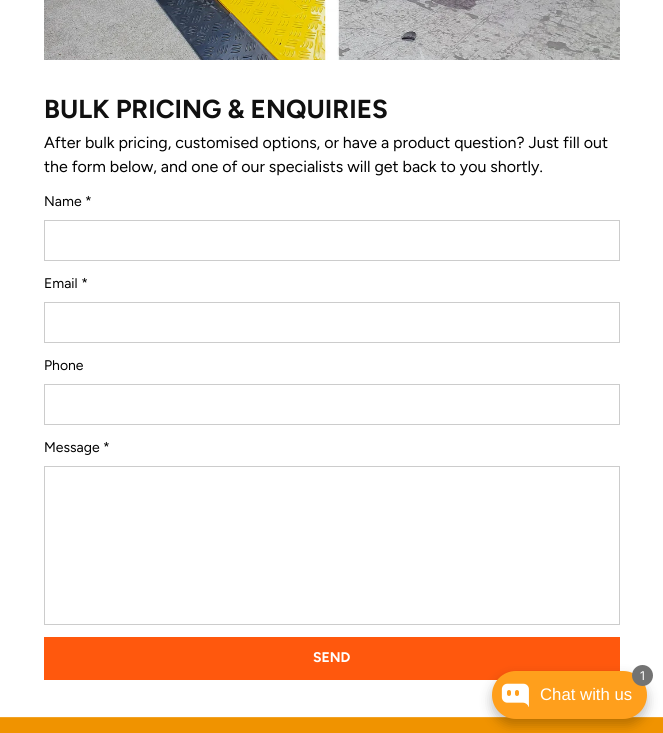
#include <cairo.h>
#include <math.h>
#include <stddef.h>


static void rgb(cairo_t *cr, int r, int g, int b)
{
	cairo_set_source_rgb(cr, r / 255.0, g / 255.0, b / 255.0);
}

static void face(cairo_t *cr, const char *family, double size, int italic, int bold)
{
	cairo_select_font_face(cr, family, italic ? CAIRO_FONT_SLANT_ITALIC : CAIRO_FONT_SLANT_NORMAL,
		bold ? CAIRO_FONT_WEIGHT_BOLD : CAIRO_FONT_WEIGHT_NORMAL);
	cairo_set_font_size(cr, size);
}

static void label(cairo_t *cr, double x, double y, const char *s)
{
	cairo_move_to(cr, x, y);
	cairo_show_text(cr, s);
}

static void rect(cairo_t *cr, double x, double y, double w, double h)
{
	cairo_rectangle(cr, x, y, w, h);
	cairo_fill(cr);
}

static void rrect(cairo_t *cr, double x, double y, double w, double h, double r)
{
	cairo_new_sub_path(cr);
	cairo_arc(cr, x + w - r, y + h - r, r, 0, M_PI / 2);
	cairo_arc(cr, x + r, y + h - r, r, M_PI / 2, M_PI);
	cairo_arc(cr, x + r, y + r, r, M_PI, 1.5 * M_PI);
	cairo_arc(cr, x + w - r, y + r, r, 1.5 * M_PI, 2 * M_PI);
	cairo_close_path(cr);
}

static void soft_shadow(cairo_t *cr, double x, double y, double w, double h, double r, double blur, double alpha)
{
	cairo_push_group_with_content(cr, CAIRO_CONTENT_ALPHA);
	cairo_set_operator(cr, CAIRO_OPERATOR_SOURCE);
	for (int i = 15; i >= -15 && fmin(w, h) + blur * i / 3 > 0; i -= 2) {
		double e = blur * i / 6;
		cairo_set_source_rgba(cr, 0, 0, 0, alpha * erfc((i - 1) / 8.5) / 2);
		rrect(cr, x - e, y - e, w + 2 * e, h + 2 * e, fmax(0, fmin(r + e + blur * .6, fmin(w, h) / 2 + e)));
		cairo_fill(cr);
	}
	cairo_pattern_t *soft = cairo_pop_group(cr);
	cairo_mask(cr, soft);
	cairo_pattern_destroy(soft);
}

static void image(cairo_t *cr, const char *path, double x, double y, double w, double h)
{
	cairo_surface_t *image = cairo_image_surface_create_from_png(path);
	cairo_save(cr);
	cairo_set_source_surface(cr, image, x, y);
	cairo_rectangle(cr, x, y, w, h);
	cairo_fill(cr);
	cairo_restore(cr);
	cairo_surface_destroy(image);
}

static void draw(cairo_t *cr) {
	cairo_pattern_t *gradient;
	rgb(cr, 255, 255, 255);
	cairo_paint(cr);
	image(cr, "image0.png", 44, 0, 576, 60);
	face(cr, "Figtree", 26, 0, 1);
	rgb(cr, 16, 16, 16);
	label(cr, 44, 118, "BULK PRICING & ENQUIRIES");
	face(cr, "Figtree", 16, 0, 0);
	rgb(cr, 0, 0, 0);
	label(cr, 44, 148, "After bulk pricing, customised options, or have a product question? Just fill out");
	label(cr, 44, 172, "the form below, and one of our specialists will get back to you shortly.");
	face(cr, "Figtree", 14, 0, 0);
	label(cr, 44, 206, "Name *");
	cairo_rectangle(cr, 44.5, 220.5, 575, 40);
	rgb(cr, 204, 204, 204);
	cairo_set_line_width(cr, 1);
	cairo_stroke(cr);
	rgb(cr, 0, 0, 0);
	label(cr, 44, 288, "Email *");
	cairo_rectangle(cr, 44.5, 302.5, 575, 40);
	rgb(cr, 204, 204, 204);
	cairo_stroke(cr);
	rgb(cr, 0, 0, 0);
	label(cr, 44, 370, "Phone");
	cairo_rectangle(cr, 44.5, 384.5, 575, 40);
	rgb(cr, 204, 204, 204);
	cairo_stroke(cr);
	rgb(cr, 0, 0, 0);
	label(cr, 44, 452, "Message *");
	cairo_rectangle(cr, 44.5, 466.5, 575, 158);
	rgb(cr, 204, 204, 204);
	cairo_stroke(cr);
	gradient = cairo_pattern_create_linear(-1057, 455, 573, 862);
	cairo_pattern_add_color_stop_rgba(gradient, 0.6, 1, 0.486, 0.251, 1);
	cairo_pattern_add_color_stop_rgba(gradient, 0.6, 1, 0.345, 0.051, 1);
	cairo_pattern_add_color_stop_rgba(gradient, 1, 1, 0.345, 0.051, 1);
	cairo_set_source(cr, gradient);
	cairo_pattern_destroy(gradient);
	rect(cr, 45, 638, 574, 41);
	cairo_rectangle(cr, 44.5, 637.5, 575, 42);
	rgb(cr, 255, 88, 13);
	cairo_stroke(cr);
	face(cr, "Figtree", 14, 0, 1);
	rgb(cr, 255, 255, 255);
	label(cr, 313, 662, "SEND");
	rgb(cr, 240, 147, 0);
	rect(cr, 0, 718, 663, 15);
	rgb(cr, 242, 163, 38);
	rect(cr, 0, 717, 663, 1);
	rgb(cr, 0, 0, 0);
	soft_shadow(cr, 492, 677, 155, 48, 24, 6, 0.25);
	rgb(cr, 255, 159, 28);
	rrect(cr, 492, 671, 155, 48, 24);
	cairo_fill(cr);
	rgb(cr, 115, 115, 115);
	cairo_arc(cr, 642.5, 675.5, 10.5, 0, 2 * M_PI);
	cairo_fill(cr);
	face(cr, "Inter", 12, 0, 0);
	rgb(cr, 255, 255, 255);
	label(cr, 640, 680, "1");
	image(cr, "image1.png", 501, 683, 28, 24);
	face(cr, "Liberation Sans", 16.75, 0, 0);
	label(cr, 540, 700, "Chat with us");
}

int main(void) {
	cairo_surface_t *surface = cairo_image_surface_create(CAIRO_FORMAT_RGB24, 663, 733);
	cairo_t *cr = cairo_create(surface);
	cairo_font_options_t *options = cairo_font_options_create();
	cairo_font_options_set_hint_metrics(options, CAIRO_HINT_METRICS_OFF);
	cairo_font_options_set_hint_style(options, CAIRO_HINT_STYLE_NONE);
	cairo_set_font_options(cr, options);
	cairo_set_miter_limit(cr, 4);
	draw(cr);
	cairo_surface_write_to_png(surface, "render.png");
	cairo_font_options_destroy(options);
	cairo_destroy(cr);
	cairo_surface_destroy(surface);
	return 0;
}
